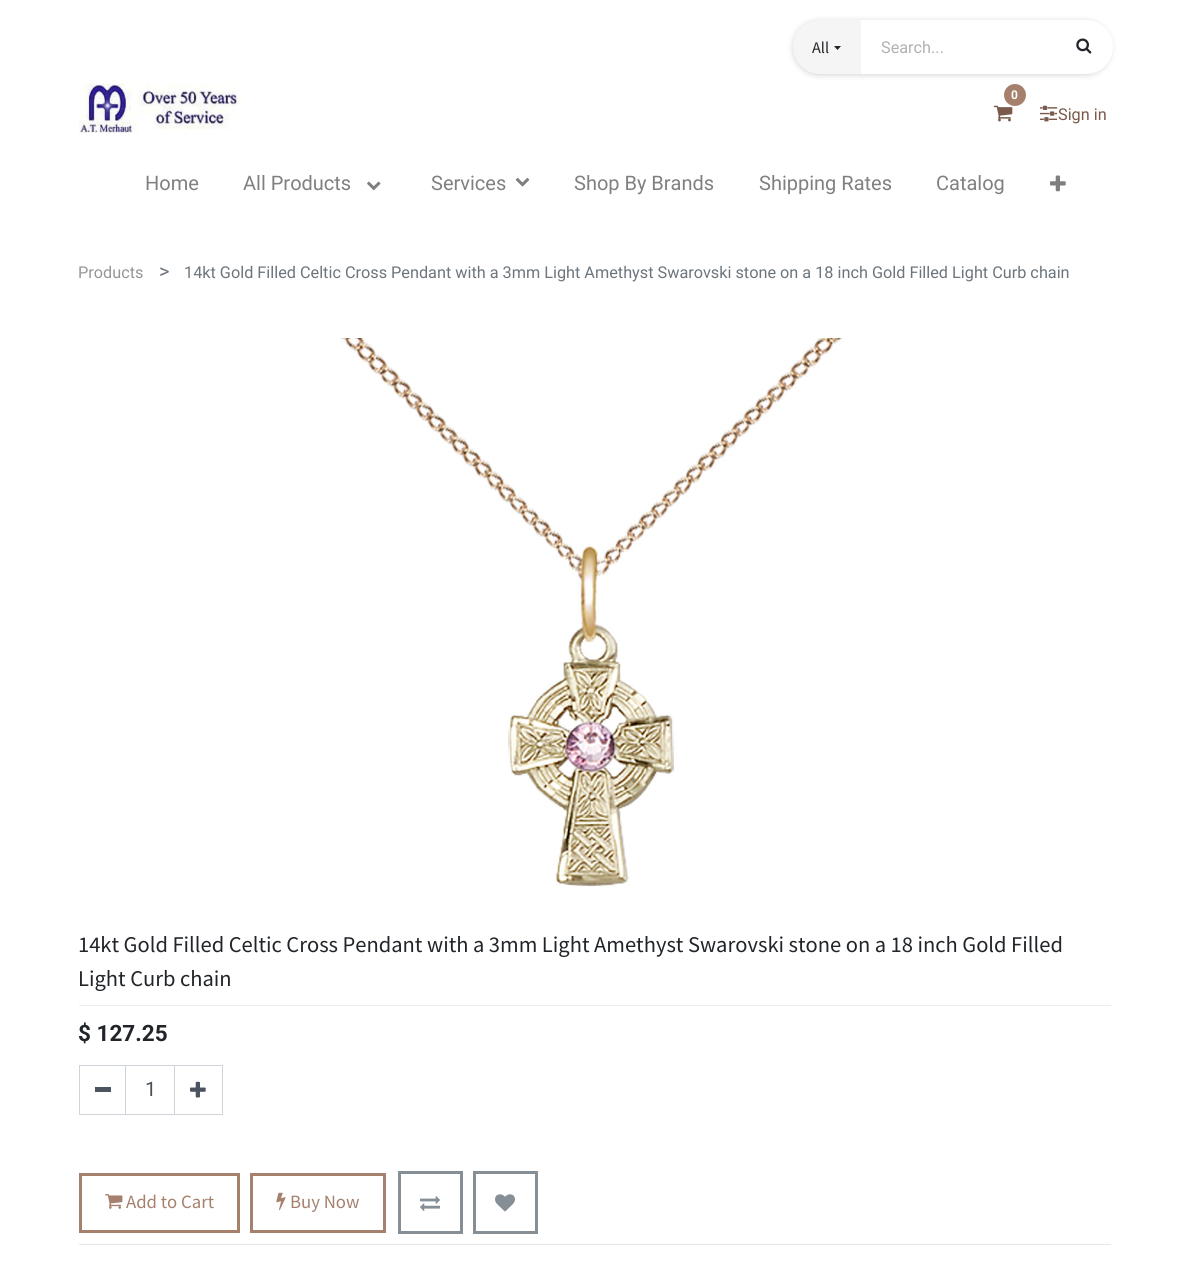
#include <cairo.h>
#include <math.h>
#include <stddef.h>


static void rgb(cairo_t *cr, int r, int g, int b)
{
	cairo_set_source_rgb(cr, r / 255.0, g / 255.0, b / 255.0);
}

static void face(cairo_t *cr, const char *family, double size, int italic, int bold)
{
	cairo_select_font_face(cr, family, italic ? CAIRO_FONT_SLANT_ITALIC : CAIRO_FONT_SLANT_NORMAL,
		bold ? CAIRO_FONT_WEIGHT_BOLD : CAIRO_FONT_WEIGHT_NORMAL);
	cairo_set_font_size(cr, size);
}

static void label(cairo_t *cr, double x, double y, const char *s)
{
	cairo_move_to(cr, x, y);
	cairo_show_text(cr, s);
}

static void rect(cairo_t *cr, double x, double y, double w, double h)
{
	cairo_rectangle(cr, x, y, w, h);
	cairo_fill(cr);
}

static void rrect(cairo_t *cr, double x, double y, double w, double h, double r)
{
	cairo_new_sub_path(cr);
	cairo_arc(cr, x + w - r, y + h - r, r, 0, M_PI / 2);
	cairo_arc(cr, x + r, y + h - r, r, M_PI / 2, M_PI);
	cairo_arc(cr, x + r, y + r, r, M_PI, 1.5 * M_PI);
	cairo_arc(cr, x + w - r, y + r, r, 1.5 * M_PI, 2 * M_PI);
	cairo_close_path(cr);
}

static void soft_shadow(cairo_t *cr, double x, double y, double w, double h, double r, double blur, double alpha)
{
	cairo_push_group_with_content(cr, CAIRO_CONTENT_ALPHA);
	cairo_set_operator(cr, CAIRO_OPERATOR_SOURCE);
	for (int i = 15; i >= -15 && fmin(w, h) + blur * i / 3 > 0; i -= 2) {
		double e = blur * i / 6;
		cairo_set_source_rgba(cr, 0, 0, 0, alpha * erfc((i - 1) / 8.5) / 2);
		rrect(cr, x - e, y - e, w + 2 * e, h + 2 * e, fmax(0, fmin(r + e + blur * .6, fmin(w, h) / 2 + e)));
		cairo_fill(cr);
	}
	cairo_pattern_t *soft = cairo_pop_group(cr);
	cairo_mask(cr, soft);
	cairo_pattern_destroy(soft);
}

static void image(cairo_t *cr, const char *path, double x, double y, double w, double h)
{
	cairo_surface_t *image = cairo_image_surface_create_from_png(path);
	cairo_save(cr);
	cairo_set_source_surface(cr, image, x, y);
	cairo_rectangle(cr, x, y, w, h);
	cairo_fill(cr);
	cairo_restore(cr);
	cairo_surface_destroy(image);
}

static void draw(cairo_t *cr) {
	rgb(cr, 255, 255, 255);
	cairo_paint(cr);
	rgb(cr, 32, 33, 36);
	soft_shadow(cr, 793, 21, 318, 54, 27, 3, 0.2);
	rgb(cr, 245, 245, 245);
	cairo_new_path(cr);
	cairo_move_to(cr, 820, 20);
	cairo_line_to(cr, 861, 20);
	cairo_line_to(cr, 861, 74);
	cairo_line_to(cr, 820, 74);
	cairo_curve_to(cr, 805, 74, 793, 62, 793, 47);
	cairo_curve_to(cr, 793, 32, 805, 20, 820, 20);
	cairo_close_path(cr);
	cairo_fill(cr);
	face(cr, "Source Sans Pro", 16.25, 0, 0);
	rgb(cr, 33, 37, 41);
	label(cr, 812, 53, "All");
	cairo_new_path(cr);
	cairo_move_to(cr, 834, 46);
	cairo_line_to(cr, 841, 46);
	cairo_line_to(cr, 837.5, 50);
	cairo_close_path(cr);
	cairo_fill(cr);
	rgb(cr, 255, 255, 255);
	cairo_new_path(cr);
	cairo_move_to(cr, 861, 20);
	cairo_line_to(cr, 1086, 20);
	cairo_curve_to(cr, 1101, 20, 1113, 32, 1113, 47);
	cairo_curve_to(cr, 1113, 62, 1101, 74, 1086, 74);
	cairo_line_to(cr, 861, 74);
	cairo_close_path(cr);
	cairo_fill(cr);
	face(cr, "Roboto", 16.25, 0, 0);
	rgb(cr, 177, 177, 177);
	label(cr, 881, 53, "Search...");
	image(cr, "image0.png", 1076, 38, 16, 16);
	image(cr, "image1.png", 78, 83, 164, 51);
	image(cr, "image2.png", 993, 105, 20, 17);
	rgb(cr, 165, 128, 109);
	cairo_arc(cr, 1015, 95, 11, 0, 2 * M_PI);
	cairo_fill(cr);
	face(cr, "Roboto", 12, 0, 1);
	rgb(cr, 255, 255, 255);
	label(cr, 1011, 99, "0");
	image(cr, "image3.png", 1040, 105, 18, 17);
	face(cr, "Roboto", 16.25, 0, 0);
	rgb(cr, 122, 91, 75);
	label(cr, 1058, 120, "Sign in");
	face(cr, "Roboto", 20, 0, 0);
	rgb(cr, 128, 128, 128);
	label(cr, 145, 190, "Home");
	label(cr, 243, 190, "All Products");
	image(cr, "image4.png", 367, 181, 14, 10);
	label(cr, 431, 190, "Services");
	image(cr, "image5.png", 515, 177, 15, 10);
	label(cr, 574, 190, "Shop By Brands");
	label(cr, 759, 190, "Shipping Rates");
	label(cr, 936, 190, "Catalog");
	image(cr, "image6.png", 1050, 175, 16, 17);
	face(cr, "Roboto", 16.25, 0, 0);
	rgb(cr, 150, 150, 150);
	label(cr, 78, 278, "Products");
	face(cr, "Roboto", 20, 0, 0);
	rgb(cr, 108, 117, 125);
	label(cr, 159, 278, ">");
	face(cr, "Roboto", 16.25, 0, 0);
	label(cr, 184, 278, "14kt Gold Filled Celtic Cross Pendant with a 3mm Light Amethyst Swarovski stone on a 18 inch Gold Filled Light Curb chain");
	image(cr, "image7.png", 340, 338, 504, 549);
	face(cr, "Source Sans Pro", 22.5, 0, 0);
	rgb(cr, 33, 37, 41);
	label(cr, 78, 952, "14kt Gold Filled Celtic Cross Pendant with a 3mm Light Amethyst Swarovski stone on a 18 inch Gold Filled");
	label(cr, 78, 986, "Light Curb chain");
	rgb(cr, 237, 237, 237);
	rect(cr, 79, 1005, 1032, 1);
	face(cr, "Roboto", 22.5, 0, 1);
	rgb(cr, 33, 37, 41);
	label(cr, 78, 1041, "$ 127.25");
	cairo_rectangle(cr, 79.5, 1065.5, 46, 49);
	rgb(cr, 206, 212, 218);
	cairo_set_line_width(cr, 1);
	cairo_stroke(cr);
	rgb(cr, 76, 84, 98);
	rect(cr, 95, 1087, 16, 5);
	cairo_rectangle(cr, 125.5, 1065.5, 49, 49);
	rgb(cr, 206, 212, 218);
	cairo_stroke(cr);
	face(cr, "Roboto", 20, 0, 0);
	rgb(cr, 73, 80, 87);
	label(cr, 145, 1096, "1");
	cairo_rectangle(cr, 174.5, 1065.5, 48, 49);
	rgb(cr, 206, 212, 218);
	cairo_stroke(cr);
	image(cr, "image8.png", 190, 1081, 16, 17);
	cairo_rectangle(cr, 80.5, 1174.5, 158, 57);
	rgb(cr, 165, 128, 109);
	cairo_set_line_width(cr, 3);
	cairo_stroke(cr);
	image(cr, "image9.png", 105, 1194, 18, 15);
	face(cr, "Source Sans Pro", 18.75, 0, 0);
	label(cr, 126, 1208, "Add to Cart");
	cairo_rectangle(cr, 251.5, 1174.5, 133, 57);
	cairo_stroke(cr);
	image(cr, "image10.png", 276, 1192, 10, 19);
	label(cr, 290, 1208, "Buy Now");
	cairo_rectangle(cr, 399.5, 1172.5, 62, 60);
	rgb(cr, 134, 142, 150);
	cairo_stroke(cr);
	image(cr, "image11.png", 420, 1196, 20, 15);
	cairo_rectangle(cr, 474.5, 1172.5, 62, 60);
	cairo_stroke(cr);
	image(cr, "image12.png", 495, 1194, 20, 18);
	rgb(cr, 230, 230, 230);
	rect(cr, 79, 1244, 1032, 1);
}

int main(void) {
	cairo_surface_t *surface = cairo_image_surface_create(CAIRO_FORMAT_RGB24, 1190, 1262);
	cairo_t *cr = cairo_create(surface);
	cairo_font_options_t *options = cairo_font_options_create();
	cairo_font_options_set_hint_metrics(options, CAIRO_HINT_METRICS_OFF);
	cairo_font_options_set_hint_style(options, CAIRO_HINT_STYLE_NONE);
	cairo_set_font_options(cr, options);
	cairo_set_miter_limit(cr, 4);
	draw(cr);
	cairo_surface_write_to_png(surface, "render.png");
	cairo_font_options_destroy(options);
	cairo_destroy(cr);
	cairo_surface_destroy(surface);
	return 0;
}
